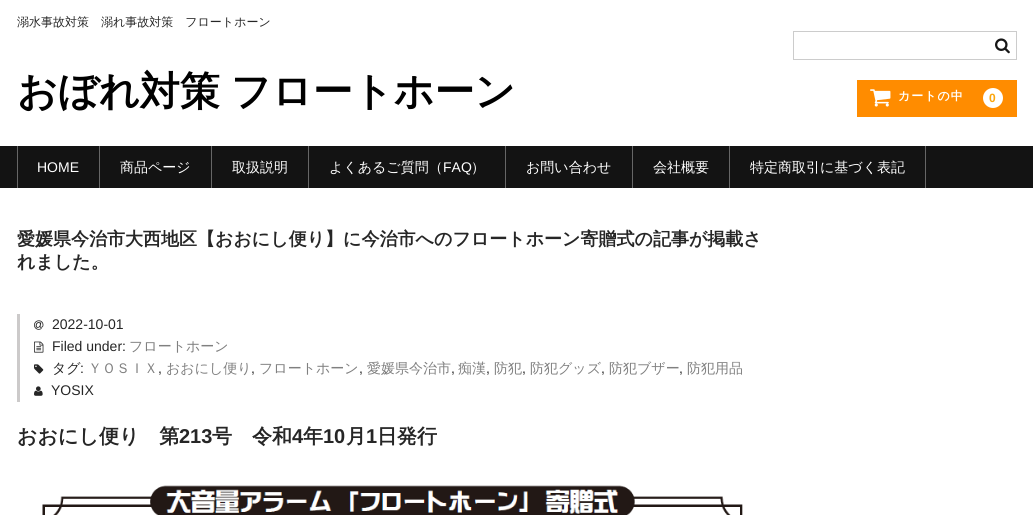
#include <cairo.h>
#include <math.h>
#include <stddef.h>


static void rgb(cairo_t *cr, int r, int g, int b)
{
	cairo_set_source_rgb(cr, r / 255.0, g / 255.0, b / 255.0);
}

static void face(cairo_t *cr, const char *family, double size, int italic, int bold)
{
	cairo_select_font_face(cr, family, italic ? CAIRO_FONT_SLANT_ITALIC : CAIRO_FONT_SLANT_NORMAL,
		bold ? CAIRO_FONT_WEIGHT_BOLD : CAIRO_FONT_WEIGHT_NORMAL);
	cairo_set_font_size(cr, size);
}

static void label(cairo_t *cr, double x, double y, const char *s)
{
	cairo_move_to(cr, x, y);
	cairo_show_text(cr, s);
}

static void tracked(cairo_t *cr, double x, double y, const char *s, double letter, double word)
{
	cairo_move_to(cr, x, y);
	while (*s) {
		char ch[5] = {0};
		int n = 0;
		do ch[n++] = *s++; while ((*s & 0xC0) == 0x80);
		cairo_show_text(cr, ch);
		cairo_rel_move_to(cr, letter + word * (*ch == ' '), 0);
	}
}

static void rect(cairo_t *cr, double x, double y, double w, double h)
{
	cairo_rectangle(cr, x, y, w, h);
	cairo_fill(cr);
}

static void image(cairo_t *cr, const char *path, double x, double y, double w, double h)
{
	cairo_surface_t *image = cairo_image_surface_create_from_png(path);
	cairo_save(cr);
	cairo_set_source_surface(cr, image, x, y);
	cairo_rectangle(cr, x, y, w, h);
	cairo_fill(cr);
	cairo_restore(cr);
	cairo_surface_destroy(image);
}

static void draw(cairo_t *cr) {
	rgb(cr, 255, 255, 255);
	cairo_paint(cr);
	face(cr, "WenQuanYi Zen Hei Medium", 12, 0, 0);
	rgb(cr, 38, 38, 38);
	label(cr, 17, 26, "溺水事故対策　溺れ事故対策　フロートホーン");
	face(cr, "WenQuanYi Zen Hei", 40, 0, 1);
	rgb(cr, 0, 0, 0);
	tracked(cr, 17, 105, "おぼれ対策 フロートホーン", 0, -1);
	cairo_rectangle(cr, 793.5, 31.5, 223, 28);
	rgb(cr, 204, 204, 204);
	cairo_set_line_width(cr, 1);
	cairo_stroke(cr);
	image(cr, "image0.png", 995, 38, 15, 16);
	rgb(cr, 255, 140, 0);
	rect(cr, 857, 80, 160, 37);
	image(cr, "image1.png", 870, 89, 21, 18);
	face(cr, "WenQuanYi Zen Hei", 12, 0, 1);
	rgb(cr, 255, 255, 255);
	tracked(cr, 898, 100, "カートの中", 1, 0);
	cairo_new_path(cr);
	cairo_arc(cr, 993, 98, 10, 0, 2 * M_PI);
	cairo_fill(cr);
	face(cr, "Liberation Sans", 12, 0, 1);
	rgb(cr, 251, 166, 13);
	tracked(cr, 989, 102, "0", 1, 0);
	rgb(cr, 19, 19, 19);
	rect(cr, 0, 146, 1033, 42);
	rgb(cr, 102, 102, 102);
	rect(cr, 99, 146, 1, 42);
	rect(cr, 17, 146, 1, 42);
	face(cr, "Liberation Sans", 14, 0, 0);
	rgb(cr, 255, 255, 255);
	label(cr, 37, 172, "HOME");
	rgb(cr, 102, 102, 102);
	rect(cr, 211, 146, 1, 42);
	face(cr, "WenQuanYi Zen Hei Medium", 14, 0, 0);
	rgb(cr, 255, 255, 255);
	label(cr, 120, 172, "商品ページ");
	rgb(cr, 102, 102, 102);
	rect(cr, 308, 146, 1, 42);
	rgb(cr, 255, 255, 255);
	label(cr, 232, 172, "取扱説明");
	rgb(cr, 102, 102, 102);
	rect(cr, 505, 146, 1, 42);
	rgb(cr, 255, 255, 255);
	label(cr, 329, 172, "よくあるご質問（");
	face(cr, "Liberation Sans", 14, 0, 0);
	label(cr, 443, 172, "FAQ");
	face(cr, "WenQuanYi Zen Hei Medium", 14, 0, 0);
	label(cr, 471, 172, "）");
	rgb(cr, 102, 102, 102);
	rect(cr, 632, 146, 1, 42);
	rgb(cr, 255, 255, 255);
	label(cr, 526, 172, "お問い合わせ");
	rgb(cr, 102, 102, 102);
	rect(cr, 729, 146, 1, 42);
	rgb(cr, 255, 255, 255);
	label(cr, 653, 172, "会社概要");
	rgb(cr, 102, 102, 102);
	rect(cr, 925, 146, 1, 42);
	rgb(cr, 255, 255, 255);
	label(cr, 750, 172, "特定商取引に基づく表記");
	face(cr, "WenQuanYi Zen Hei", 18, 0, 1);
	rgb(cr, 38, 38, 38);
	label(cr, 17, 245, "愛媛県今治市大西地区【おおにし便り】に今治市へのフロートホーン寄贈式の記事が掲載さ");
	label(cr, 17, 268, "れました。");
	rgb(cr, 204, 202, 202);
	rect(cr, 17, 314, 3, 88);
	image(cr, "image2.png", 34, 320, 10, 10);
	face(cr, "Liberation Sans", 14, 0, 0);
	rgb(cr, 38, 38, 38);
	label(cr, 52, 329, "2022-10-01");
	image(cr, "image3.png", 34, 341, 10, 12);
	label(cr, 52, 351, "Filed under:");
	face(cr, "WenQuanYi Zen Hei Medium", 14, 0, 0);
	rgb(cr, 128, 128, 128);
	label(cr, 129, 351, "フロートホーン");
	image(cr, "image4.png", 34, 364, 10, 10);
	rgb(cr, 38, 38, 38);
	label(cr, 52, 373, "タグ");
	face(cr, "Liberation Sans", 14, 0, 0);
	label(cr, 80, 373, ":");
	face(cr, "WenQuanYi Zen Hei Medium", 14, 0, 0);
	rgb(cr, 128, 128, 128);
	label(cr, 88, 373, "ＹＯＳＩＸ");
	face(cr, "Liberation Sans", 14, 0, 0);
	rgb(cr, 38, 38, 38);
	label(cr, 158, 373, ",");
	face(cr, "WenQuanYi Zen Hei Medium", 14, 0, 0);
	rgb(cr, 128, 128, 128);
	label(cr, 166, 373, "おおにし便り");
	face(cr, "Liberation Sans", 14, 0, 0);
	rgb(cr, 38, 38, 38);
	label(cr, 251, 373, ",");
	face(cr, "WenQuanYi Zen Hei Medium", 14, 0, 0);
	rgb(cr, 128, 128, 128);
	label(cr, 259, 373, "フロートホーン");
	face(cr, "Liberation Sans", 14, 0, 0);
	rgb(cr, 38, 38, 38);
	label(cr, 359, 373, ",");
	face(cr, "WenQuanYi Zen Hei Medium", 14, 0, 0);
	rgb(cr, 128, 128, 128);
	label(cr, 367, 373, "愛媛県今治市");
	face(cr, "Liberation Sans", 14, 0, 0);
	rgb(cr, 38, 38, 38);
	label(cr, 451, 373, ",");
	face(cr, "WenQuanYi Zen Hei Medium", 14, 0, 0);
	rgb(cr, 128, 128, 128);
	label(cr, 458, 373, "痴漢");
	face(cr, "Liberation Sans", 14, 0, 0);
	rgb(cr, 38, 38, 38);
	label(cr, 486, 373, ",");
	face(cr, "WenQuanYi Zen Hei Medium", 14, 0, 0);
	rgb(cr, 128, 128, 128);
	label(cr, 494, 373, "防犯");
	face(cr, "Liberation Sans", 14, 0, 0);
	rgb(cr, 38, 38, 38);
	label(cr, 522, 373, ",");
	face(cr, "WenQuanYi Zen Hei Medium", 14, 0, 0);
	rgb(cr, 128, 128, 128);
	label(cr, 530, 373, "防犯グッズ");
	face(cr, "Liberation Sans", 14, 0, 0);
	rgb(cr, 38, 38, 38);
	label(cr, 601, 373, ",");
	face(cr, "WenQuanYi Zen Hei Medium", 14, 0, 0);
	rgb(cr, 128, 128, 128);
	label(cr, 609, 373, "防犯ブザー");
	face(cr, "Liberation Sans", 14, 0, 0);
	rgb(cr, 38, 38, 38);
	label(cr, 679, 373, ",");
	face(cr, "WenQuanYi Zen Hei Medium", 14, 0, 0);
	rgb(cr, 128, 128, 128);
	label(cr, 687, 373, "防犯用品");
	image(cr, "image5.png", 34, 386, 9, 10);
	face(cr, "Liberation Sans", 14, 0, 0);
	rgb(cr, 38, 38, 38);
	label(cr, 51, 395, "YOSIX");
	face(cr, "WenQuanYi Zen Hei", 20, 0, 1);
	label(cr, 17, 443, "おおにし便り　第");
	face(cr, "Liberation Sans", 20, 0, 1);
	label(cr, 179, 443, "213");
	face(cr, "WenQuanYi Zen Hei", 20, 0, 1);
	label(cr, 212, 443, "号　令和");
	face(cr, "Liberation Sans", 20, 0, 1);
	label(cr, 292, 443, "4");
	face(cr, "WenQuanYi Zen Hei", 20, 0, 1);
	label(cr, 303, 443, "年");
	face(cr, "Liberation Sans", 20, 0, 1);
	label(cr, 323, 443, "10");
	face(cr, "WenQuanYi Zen Hei", 20, 0, 1);
	label(cr, 346, 443, "月");
	face(cr, "Liberation Sans", 20, 0, 1);
	label(cr, 366, 443, "1");
	face(cr, "WenQuanYi Zen Hei", 20, 0, 1);
	label(cr, 377, 443, "日発行");
	image(cr, "image6.png", 42, 485, 701, 30);
}

int main(void) {
	cairo_surface_t *surface = cairo_image_surface_create(CAIRO_FORMAT_RGB24, 1033, 515);
	cairo_t *cr = cairo_create(surface);
	cairo_font_options_t *options = cairo_font_options_create();
	cairo_font_options_set_hint_metrics(options, CAIRO_HINT_METRICS_OFF);
	cairo_font_options_set_hint_style(options, CAIRO_HINT_STYLE_NONE);
	cairo_set_font_options(cr, options);
	cairo_set_miter_limit(cr, 4);
	draw(cr);
	cairo_surface_write_to_png(surface, "render.png");
	cairo_font_options_destroy(options);
	cairo_destroy(cr);
	cairo_surface_destroy(surface);
	return 0;
}
